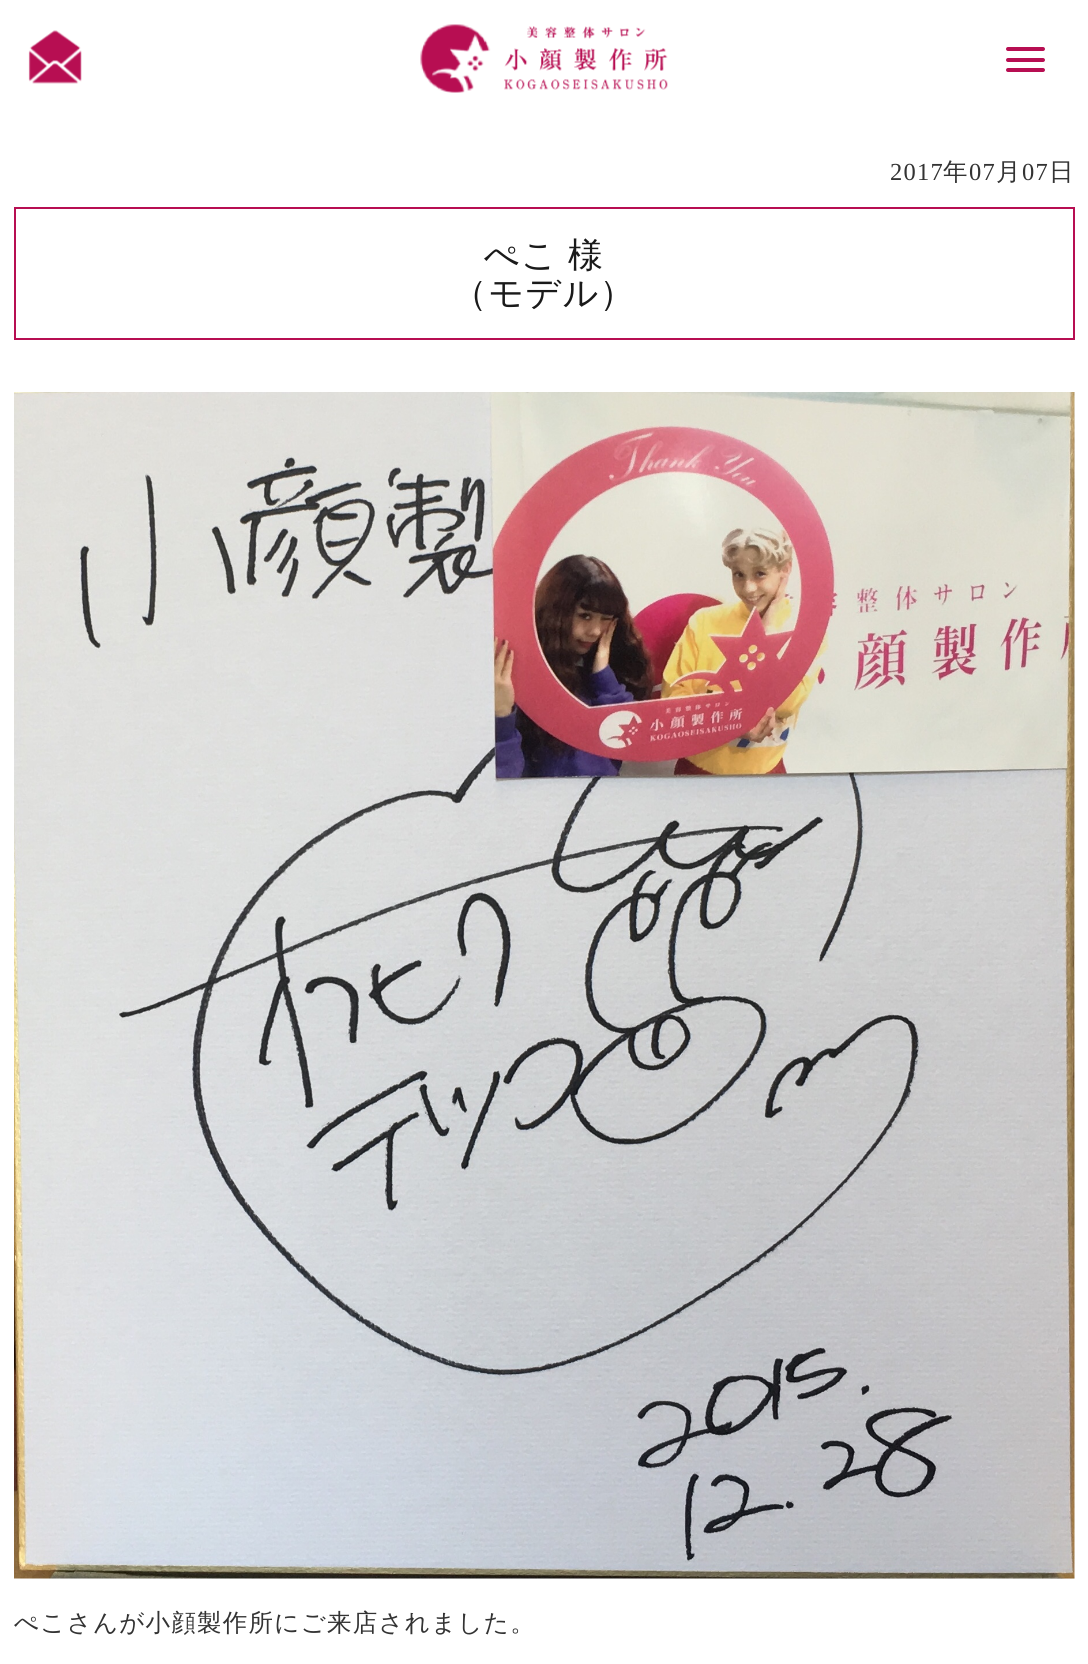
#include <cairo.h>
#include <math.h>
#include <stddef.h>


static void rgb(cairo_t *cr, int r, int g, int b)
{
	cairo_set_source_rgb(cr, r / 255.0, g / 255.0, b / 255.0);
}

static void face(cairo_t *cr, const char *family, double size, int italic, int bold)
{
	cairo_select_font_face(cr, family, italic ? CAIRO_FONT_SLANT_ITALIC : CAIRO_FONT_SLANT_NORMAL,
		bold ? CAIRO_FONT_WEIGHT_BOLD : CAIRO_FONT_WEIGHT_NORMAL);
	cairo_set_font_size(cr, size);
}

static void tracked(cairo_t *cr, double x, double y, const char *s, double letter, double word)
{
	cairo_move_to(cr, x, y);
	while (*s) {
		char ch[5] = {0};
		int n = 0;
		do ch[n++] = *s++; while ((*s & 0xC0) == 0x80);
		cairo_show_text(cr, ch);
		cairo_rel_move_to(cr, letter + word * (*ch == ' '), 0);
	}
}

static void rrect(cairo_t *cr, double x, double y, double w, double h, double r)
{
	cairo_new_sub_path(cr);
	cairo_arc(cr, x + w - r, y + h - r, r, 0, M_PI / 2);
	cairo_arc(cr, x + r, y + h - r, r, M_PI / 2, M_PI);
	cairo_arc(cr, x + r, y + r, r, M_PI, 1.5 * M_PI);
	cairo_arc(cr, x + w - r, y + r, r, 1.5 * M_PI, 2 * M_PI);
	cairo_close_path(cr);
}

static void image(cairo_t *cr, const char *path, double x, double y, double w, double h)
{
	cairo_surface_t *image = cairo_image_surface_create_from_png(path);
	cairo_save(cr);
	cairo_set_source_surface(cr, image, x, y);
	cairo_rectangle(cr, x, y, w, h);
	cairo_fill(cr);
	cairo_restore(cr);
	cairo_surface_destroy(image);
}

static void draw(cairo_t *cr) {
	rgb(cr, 255, 255, 255);
	cairo_paint(cr);
	image(cr, "image0.png", 28, 30, 54, 54);
	image(cr, "image1.png", 420, 24, 248, 69);
	rgb(cr, 183, 14, 82);
	rrect(cr, 1006, 47, 39, 4, 2);
	cairo_fill(cr);
	rrect(cr, 1006, 58, 39, 4, 2);
	cairo_fill(cr);
	rrect(cr, 1006, 68, 39, 4, 2);
	cairo_fill(cr);
	face(cr, "Liberation Serif", 24.5, 0, 0);
	rgb(cr, 51, 51, 51);
	tracked(cr, 890, 180, "2017", 1.25, 0);
	face(cr, "WenQuanYi Zen Hei Medium", 24.5, 0, 0);
	tracked(cr, 943, 180, "年", 1.25, 0);
	face(cr, "Liberation Serif", 24.5, 0, 0);
	tracked(cr, 969, 180, "07", 1.25, 0);
	face(cr, "WenQuanYi Zen Hei Medium", 24.5, 0, 0);
	tracked(cr, 996, 180, "月", 1.25, 0);
	face(cr, "Liberation Serif", 24.5, 0, 0);
	tracked(cr, 1022, 180, "07", 1.25, 0);
	face(cr, "WenQuanYi Zen Hei Medium", 24.5, 0, 0);
	tracked(cr, 1049, 180, "日", 1.25, 0);
	cairo_rectangle(cr, 15, 208, 1059, 131);
	rgb(cr, 183, 14, 82);
	cairo_stroke(cr);
	face(cr, "WenQuanYi Zen Hei Medium", 35, 0, 0);
	rgb(cr, 26, 26, 26);
	tracked(cr, 484, 267, "ぺこ 様", 1.25, -2);
	tracked(cr, 452, 305, "（モデル）", 1.25, 0);
	image(cr, "image2.png", 14, 392, 1061, 1187);
	face(cr, "WenQuanYi Zen Hei Medium", 24.5, 0, 0);
	rgb(cr, 51, 51, 51);
	tracked(cr, 14, 1631, "ぺこさんが小顔製作所にご来店されました。", 1.25, 0);
}

int main(void) {
	cairo_surface_t *surface = cairo_image_surface_create(CAIRO_FORMAT_RGB24, 1088, 1664);
	cairo_t *cr = cairo_create(surface);
	cairo_font_options_t *options = cairo_font_options_create();
	cairo_font_options_set_hint_metrics(options, CAIRO_HINT_METRICS_OFF);
	cairo_font_options_set_hint_style(options, CAIRO_HINT_STYLE_NONE);
	cairo_set_font_options(cr, options);
	cairo_set_miter_limit(cr, 4);
	draw(cr);
	cairo_surface_write_to_png(surface, "render.png");
	cairo_font_options_destroy(options);
	cairo_destroy(cr);
	cairo_surface_destroy(surface);
	return 0;
}
